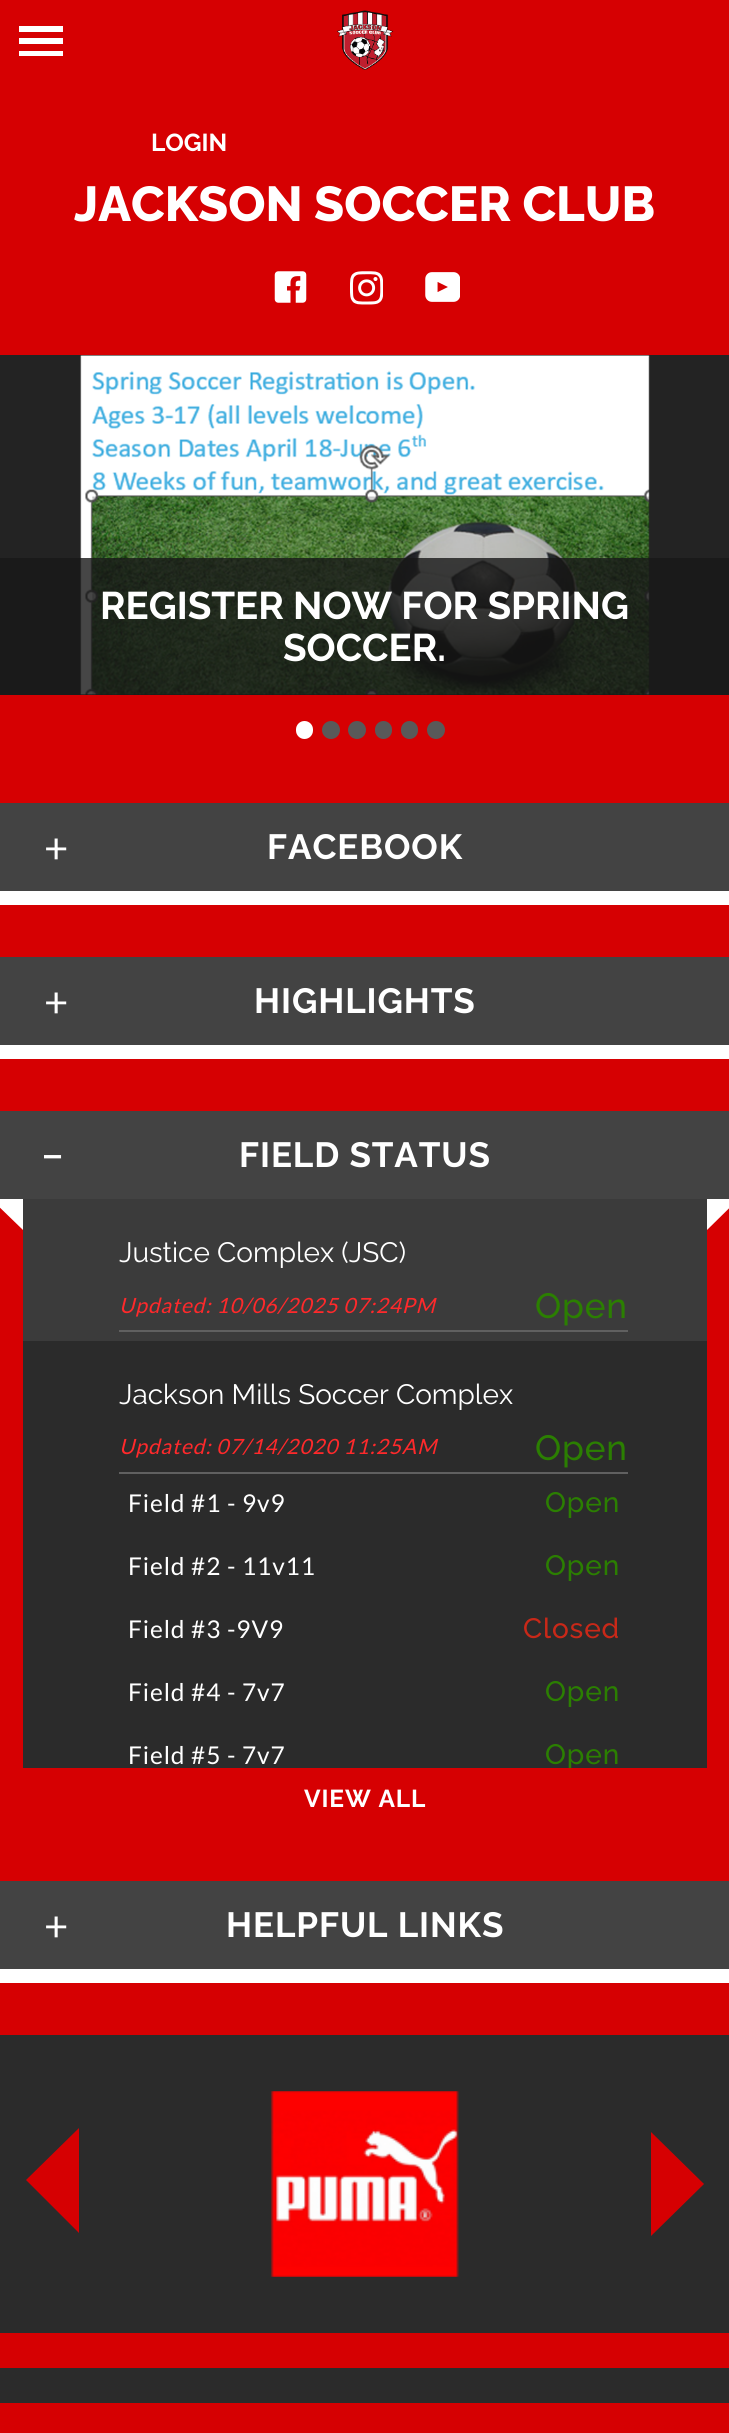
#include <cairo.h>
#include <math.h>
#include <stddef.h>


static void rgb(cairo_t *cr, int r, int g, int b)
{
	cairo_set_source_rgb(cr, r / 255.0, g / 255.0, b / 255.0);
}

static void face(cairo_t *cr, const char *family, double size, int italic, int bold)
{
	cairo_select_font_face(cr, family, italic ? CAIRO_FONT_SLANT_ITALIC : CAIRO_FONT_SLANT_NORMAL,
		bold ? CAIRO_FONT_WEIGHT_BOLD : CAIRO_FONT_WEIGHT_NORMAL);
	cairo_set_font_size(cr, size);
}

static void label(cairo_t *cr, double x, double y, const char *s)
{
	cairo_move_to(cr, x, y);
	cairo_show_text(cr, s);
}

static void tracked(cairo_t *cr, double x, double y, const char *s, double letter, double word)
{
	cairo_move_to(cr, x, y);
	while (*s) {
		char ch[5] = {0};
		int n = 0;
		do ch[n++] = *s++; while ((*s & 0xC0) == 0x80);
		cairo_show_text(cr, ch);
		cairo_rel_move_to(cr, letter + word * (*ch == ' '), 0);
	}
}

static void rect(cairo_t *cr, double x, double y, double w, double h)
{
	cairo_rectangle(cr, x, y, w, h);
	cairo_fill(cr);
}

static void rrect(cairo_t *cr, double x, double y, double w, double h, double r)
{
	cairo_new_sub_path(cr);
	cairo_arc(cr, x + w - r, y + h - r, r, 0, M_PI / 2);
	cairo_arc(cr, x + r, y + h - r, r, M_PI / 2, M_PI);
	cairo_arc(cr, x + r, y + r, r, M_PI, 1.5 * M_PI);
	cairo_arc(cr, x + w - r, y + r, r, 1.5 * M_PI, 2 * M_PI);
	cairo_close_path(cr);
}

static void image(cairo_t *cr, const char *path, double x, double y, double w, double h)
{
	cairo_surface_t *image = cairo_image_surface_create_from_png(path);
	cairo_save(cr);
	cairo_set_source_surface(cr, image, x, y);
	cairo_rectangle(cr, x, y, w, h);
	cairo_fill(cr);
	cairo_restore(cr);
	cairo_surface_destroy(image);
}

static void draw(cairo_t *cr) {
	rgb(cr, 214, 0, 2);
	cairo_paint(cr);
	rgb(cr, 255, 255, 255);
	cairo_new_path(cr);
	cairo_move_to(cr, 19, 26);
	cairo_line_to(cr, 63, 26);
	cairo_line_to(cr, 63, 32);
	cairo_line_to(cr, 19, 32);
	cairo_close_path(cr);
	cairo_move_to(cr, 19, 38);
	cairo_line_to(cr, 63, 38);
	cairo_line_to(cr, 63, 44);
	cairo_line_to(cr, 19, 44);
	cairo_close_path(cr);
	cairo_move_to(cr, 19, 51);
	cairo_line_to(cr, 63, 51);
	cairo_line_to(cr, 63, 56);
	cairo_line_to(cr, 19, 56);
	cairo_close_path(cr);
	cairo_fill(cr);
	image(cr, "image0.png", 337, 10, 57, 60);
	face(cr, "Raleway", 24.5, 0, 1);
	label(cr, 151, 151, "LOGIN");
	face(cr, "Raleway ExtraBold", 49, 0, 0);
	label(cr, 74, 221, "JACKSON SOCCER CLUB");
	image(cr, "image1.png", 274, 271, 33, 32);
	image(cr, "image2.png", 350, 271, 33, 34);
	image(cr, "image3.png", 425, 272, 35, 30);
	rgb(cr, 35, 35, 35);
	rect(cr, 0, 355, 729, 340);
	image(cr, "image4.png", 80, 355, 570, 340);
	cairo_set_source_rgba(cr, 0.094, 0.094, 0.094, 0.8);
	rect(cr, 0, 558, 729, 137);
	face(cr, "Raleway", 38.5, 0, 1);
	rgb(cr, 255, 255, 255);
	label(cr, 100, 619, "REGISTER NOW FOR SPRING");
	label(cr, 283, 661, "SOCCER.");
	rrect(cr, 296, 721, 17, 18, 8.5);
	cairo_fill(cr);
	rgb(cr, 89, 89, 89);
	cairo_arc(cr, 331, 730, 9, 0, 2 * M_PI);
	cairo_fill(cr);
	cairo_arc(cr, 357, 730, 9, 0, 2 * M_PI);
	cairo_fill(cr);
	rrect(cr, 375, 721, 17, 18, 8.5);
	cairo_fill(cr);
	rrect(cr, 401, 721, 17, 18, 8.5);
	cairo_fill(cr);
	cairo_arc(cr, 436, 730, 9, 0, 2 * M_PI);
	cairo_fill(cr);
	rgb(cr, 67, 67, 67);
	rect(cr, 0, 803, 729, 88);
	rgb(cr, 255, 255, 255);
	rect(cr, 0, 891, 729, 14);
	face(cr, "Lato", 42, 0, 0);
	tracked(cr, 44, 863, "+", 0.9, 0);
	face(cr, "Raleway", 35, 0, 1);
	tracked(cr, 267, 859, "FACEBOOK", 0.9, 0);
	rgb(cr, 67, 67, 67);
	rect(cr, 0, 957, 729, 88);
	rgb(cr, 255, 255, 255);
	rect(cr, 0, 1045, 729, 14);
	face(cr, "Lato", 42, 0, 0);
	tracked(cr, 44, 1017, "+", 0.9, 0);
	face(cr, "Raleway", 35, 0, 1);
	tracked(cr, 254, 1013, "HIGHLIGHTS", 0.9, 0);
	rgb(cr, 67, 67, 67);
	rect(cr, 0, 1111, 729, 88);
	face(cr, "Exo", 28, 0, 1);
	rgb(cr, 255, 255, 255);
	tracked(cr, 44, 1153, "_", 0.9, 0);
	face(cr, "Raleway", 35, 0, 1);
	tracked(cr, 239, 1167, "FIELD STATUS", 0.9, 0);
	rgb(cr, 43, 43, 43);
	rect(cr, 23, 1341, 684, 427);
	rgb(cr, 255, 255, 255);
	cairo_new_path(cr);
	cairo_move_to(cr, -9, 1199);
	cairo_line_to(cr, 23, 1199);
	cairo_line_to(cr, 23, 1230);
	cairo_close_path(cr);
	cairo_fill(cr);
	cairo_new_path(cr);
	cairo_move_to(cr, 707, 1199);
	cairo_line_to(cr, 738.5, 1199);
	cairo_line_to(cr, 707, 1230);
	cairo_close_path(cr);
	cairo_fill(cr);
	rgb(cr, 59, 59, 59);
	rect(cr, 23, 1199, 684, 142);
	face(cr, "Raleway", 28, 0, 0);
	rgb(cr, 255, 255, 255);
	label(cr, 119, 1262, "Justice Complex (JSC)");
	rgb(cr, 96, 96, 96);
	rect(cr, 119, 1330, 509, 2);
	face(cr, "Lato", 21, 1, 0);
	rgb(cr, 255, 41, 43);
	tracked(cr, 119, 1313, "Updated: 10/06/2025 07:24PM", 0.9, 0);
	face(cr, "Raleway Medium", 35, 0, 0);
	rgb(cr, 43, 127, 1);
	tracked(cr, 535, 1318, "Open", 0.9, 0);
	face(cr, "Raleway", 28, 0, 0);
	rgb(cr, 255, 255, 255);
	label(cr, 119, 1404, "Jackson Mills Soccer Complex");
	rgb(cr, 96, 96, 96);
	rect(cr, 119, 1472, 509, 2);
	face(cr, "Lato", 21, 1, 0);
	rgb(cr, 255, 41, 43);
	tracked(cr, 119, 1454, "Updated: 07/14/2020 11:25AM", 0.9, 0);
	face(cr, "Raleway Medium", 35, 0, 0);
	rgb(cr, 43, 127, 1);
	tracked(cr, 535, 1460, "Open", 0.9, 0);
	face(cr, "Lato", 24.5, 0, 0);
	rgb(cr, 255, 255, 255);
	tracked(cr, 128, 1512, "Field #1 - 9v9", 0.9, 0);
	face(cr, "Raleway Medium", 28, 0, 0);
	rgb(cr, 43, 127, 1);
	tracked(cr, 545, 1512, "Open", 0.9, 0);
	face(cr, "Lato", 24.5, 0, 0);
	rgb(cr, 255, 255, 255);
	tracked(cr, 128, 1575, "Field #2 - 11v11", 0.9, 0);
	face(cr, "Raleway Medium", 28, 0, 0);
	rgb(cr, 43, 127, 1);
	tracked(cr, 545, 1575, "Open", 0.9, 0);
	face(cr, "Lato", 24.5, 0, 0);
	rgb(cr, 255, 255, 255);
	tracked(cr, 128, 1638, "Field #3 -9V9", 0.9, 0);
	face(cr, "Raleway Medium", 28, 0, 0);
	rgb(cr, 201, 40, 24);
	tracked(cr, 523, 1638, "Closed", 0.9, 0);
	face(cr, "Lato", 24.5, 0, 0);
	rgb(cr, 255, 255, 255);
	tracked(cr, 128, 1701, "Field #4 - 7v7", 0.9, 0);
	face(cr, "Raleway Medium", 28, 0, 0);
	rgb(cr, 43, 127, 1);
	tracked(cr, 545, 1701, "Open", 0.9, 0);
	face(cr, "Lato", 24.5, 0, 0);
	rgb(cr, 255, 255, 255);
	tracked(cr, 128, 1764, "Field #5 - 7v7", 0.9, 0);
	face(cr, "Raleway Medium", 28, 0, 0);
	rgb(cr, 43, 127, 1);
	tracked(cr, 545, 1764, "Open", 0.9, 0);
	rgb(cr, 214, 0, 2);
	rect(cr, 568, 1768, 3, 2);
	face(cr, "Raleway", 24.5, 0, 1);
	rgb(cr, 255, 255, 255);
	tracked(cr, 304, 1807, "VIEW ALL", 0.9, 0);
	rgb(cr, 67, 67, 67);
	rect(cr, 0, 1881, 729, 88);
	rgb(cr, 255, 255, 255);
	rect(cr, 0, 1969, 729, 14);
	face(cr, "Lato", 42, 0, 0);
	tracked(cr, 44, 1941, "+", 0.9, 0);
	face(cr, "Raleway", 35, 0, 1);
	tracked(cr, 226, 1937, "HELPFUL LINKS", 0.9, 0);
	rgb(cr, 43, 43, 43);
	rect(cr, 0, 2035, 729, 298);
	rgb(cr, 214, 0, 2);
	cairo_new_path(cr);
	cairo_move_to(cr, 79, 2128);
	cairo_line_to(cr, 79, 2233);
	cairo_line_to(cr, 26, 2180);
	cairo_close_path(cr);
	cairo_fill(cr);
	image(cr, "image5.png", 270, 2091, 189, 186);
	cairo_new_path(cr);
	cairo_move_to(cr, 651, 2236);
	cairo_line_to(cr, 651, 2132);
	cairo_line_to(cr, 704, 2184);
	cairo_close_path(cr);
	cairo_fill(cr);
	rgb(cr, 43, 43, 43);
	rect(cr, 0, 2368, 729, 35);
}

int main(void) {
	cairo_surface_t *surface = cairo_image_surface_create(CAIRO_FORMAT_RGB24, 729, 2433);
	cairo_t *cr = cairo_create(surface);
	cairo_font_options_t *options = cairo_font_options_create();
	cairo_font_options_set_hint_metrics(options, CAIRO_HINT_METRICS_OFF);
	cairo_font_options_set_hint_style(options, CAIRO_HINT_STYLE_NONE);
	cairo_set_font_options(cr, options);
	cairo_set_miter_limit(cr, 4);
	draw(cr);
	cairo_surface_write_to_png(surface, "render.png");
	cairo_font_options_destroy(options);
	cairo_destroy(cr);
	cairo_surface_destroy(surface);
	return 0;
}
